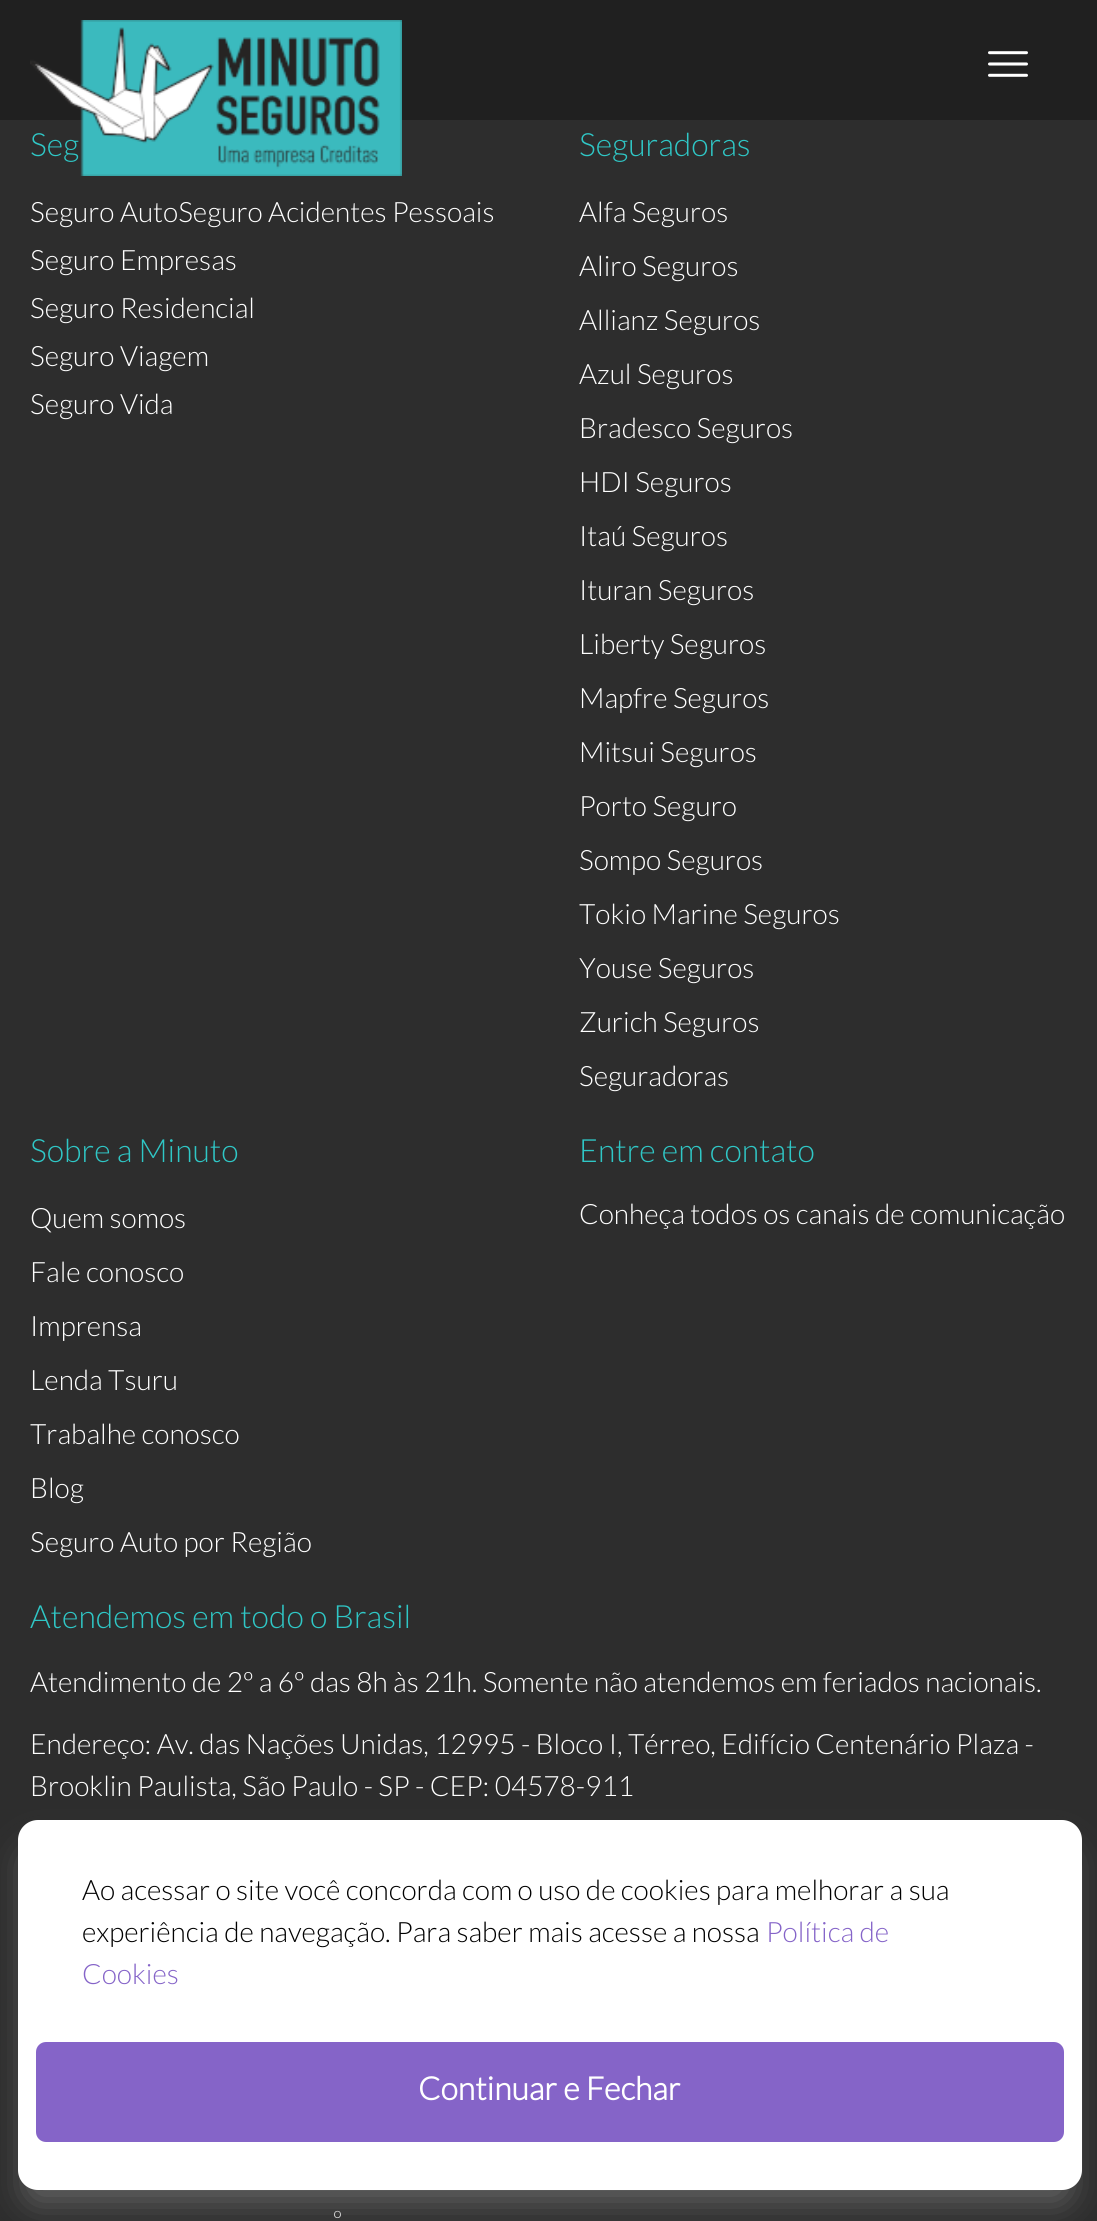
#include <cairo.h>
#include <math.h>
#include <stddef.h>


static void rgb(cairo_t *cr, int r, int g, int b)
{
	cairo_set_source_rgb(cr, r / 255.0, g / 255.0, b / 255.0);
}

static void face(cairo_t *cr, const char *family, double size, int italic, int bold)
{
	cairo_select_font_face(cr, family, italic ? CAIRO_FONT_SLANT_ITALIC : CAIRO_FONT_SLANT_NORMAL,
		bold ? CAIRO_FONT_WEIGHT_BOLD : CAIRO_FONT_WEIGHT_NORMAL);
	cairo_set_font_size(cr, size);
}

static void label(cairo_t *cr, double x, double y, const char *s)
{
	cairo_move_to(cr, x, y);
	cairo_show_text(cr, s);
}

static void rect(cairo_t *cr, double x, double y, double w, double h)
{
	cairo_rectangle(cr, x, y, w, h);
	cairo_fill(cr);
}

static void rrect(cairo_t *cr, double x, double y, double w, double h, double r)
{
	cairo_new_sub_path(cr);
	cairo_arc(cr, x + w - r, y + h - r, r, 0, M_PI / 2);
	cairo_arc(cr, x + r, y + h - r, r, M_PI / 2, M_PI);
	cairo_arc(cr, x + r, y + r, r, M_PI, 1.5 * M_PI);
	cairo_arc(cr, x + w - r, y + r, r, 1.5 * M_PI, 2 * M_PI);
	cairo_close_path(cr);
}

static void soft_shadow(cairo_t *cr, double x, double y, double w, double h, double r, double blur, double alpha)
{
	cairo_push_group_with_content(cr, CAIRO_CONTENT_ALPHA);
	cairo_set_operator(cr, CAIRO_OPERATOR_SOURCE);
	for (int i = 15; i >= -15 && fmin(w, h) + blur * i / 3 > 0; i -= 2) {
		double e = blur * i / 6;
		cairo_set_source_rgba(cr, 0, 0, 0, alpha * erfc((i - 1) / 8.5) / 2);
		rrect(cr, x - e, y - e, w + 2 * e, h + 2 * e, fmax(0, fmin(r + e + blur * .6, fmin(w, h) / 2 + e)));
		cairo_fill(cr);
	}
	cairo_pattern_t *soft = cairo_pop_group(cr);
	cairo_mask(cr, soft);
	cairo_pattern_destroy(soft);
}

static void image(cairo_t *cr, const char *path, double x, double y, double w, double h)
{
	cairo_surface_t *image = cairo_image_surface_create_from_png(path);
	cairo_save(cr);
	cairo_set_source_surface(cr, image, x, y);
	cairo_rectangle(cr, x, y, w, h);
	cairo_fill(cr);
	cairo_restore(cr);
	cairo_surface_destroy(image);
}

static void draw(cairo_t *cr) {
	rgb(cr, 45, 45, 45);
	cairo_paint(cr);
	face(cr, "Lato Light", 32, 0, 0);
	rgb(cr, 47, 199, 198);
	label(cr, 30, 156, "Seg");
	face(cr, "Lato Light", 28, 0, 0);
	rgb(cr, 255, 255, 255);
	label(cr, 30, 222, "Seguro AutoSeguro Acidentes Pessoais");
	label(cr, 30, 270, "Seguro Empresas");
	label(cr, 30, 318, "Seguro Residencial");
	label(cr, 30, 366, "Seguro Viagem");
	label(cr, 30, 414, "Seguro Vida");
	face(cr, "Lato Light", 32, 0, 0);
	rgb(cr, 47, 199, 198);
	label(cr, 579, 156, "Seguradoras");
	face(cr, "Lato Light", 28, 0, 0);
	rgb(cr, 255, 255, 255);
	label(cr, 579, 222, "Alfa Seguros");
	label(cr, 579, 276, "Aliro Seguros");
	label(cr, 579, 330, "Allianz Seguros");
	label(cr, 579, 384, "Azul Seguros");
	label(cr, 579, 438, "Bradesco Seguros");
	label(cr, 579, 492, "HDI Seguros");
	label(cr, 579, 546, "Itaú Seguros");
	label(cr, 579, 600, "Ituran Seguros");
	label(cr, 579, 654, "Liberty Seguros");
	label(cr, 579, 708, "Mapfre Seguros");
	label(cr, 579, 762, "Mitsui Seguros");
	label(cr, 579, 816, "Porto Seguro");
	label(cr, 579, 870, "Sompo Seguros");
	label(cr, 579, 924, "Tokio Marine Seguros");
	label(cr, 579, 978, "Youse Seguros");
	label(cr, 579, 1032, "Zurich Seguros");
	label(cr, 579, 1086, "Seguradoras");
	face(cr, "Lato Light", 32, 0, 0);
	rgb(cr, 47, 199, 198);
	label(cr, 30, 1162, "Sobre a Minuto");
	face(cr, "Lato Light", 28, 0, 0);
	rgb(cr, 255, 255, 255);
	label(cr, 30, 1228, "Quem somos");
	label(cr, 30, 1282, "Fale conosco");
	label(cr, 30, 1336, "Imprensa");
	label(cr, 30, 1390, "Lenda Tsuru");
	label(cr, 30, 1444, "Trabalhe conosco");
	label(cr, 30, 1498, "Blog");
	label(cr, 30, 1552, "Seguro Auto por Região");
	face(cr, "Lato Light", 32, 0, 0);
	rgb(cr, 47, 199, 198);
	label(cr, 579, 1162, "Entre em contato");
	face(cr, "Lato Light", 28, 0, 0);
	rgb(cr, 255, 255, 255);
	label(cr, 579, 1224, "Conheça todos os canais de comunicação");
	face(cr, "Lato Light", 32, 0, 0);
	rgb(cr, 47, 199, 198);
	label(cr, 30, 1628, "Atendemos em todo o Brasil");
	face(cr, "Lato Light", 28, 0, 0);
	rgb(cr, 255, 255, 255);
	label(cr, 30, 1692, "Atendimento de 2º a 6º das 8h às 21h. Somente não atendemos em feriados nacionais.");
	label(cr, 30, 1754, "Endereço: Av. das Nações Unidas, 12995 - Bloco I, Térreo, Edifício Centenário Plaza -");
	label(cr, 30, 1796, "Brooklin Paulista, São Paulo - SP - CEP: 04578-911");
	face(cr, "Lato Light", 24, 0, 0);
	label(cr, 333, 2228, "º");
	rgb(cr, 32, 32, 32);
	rect(cr, 0, 0, 1097, 120);
	image(cr, "image0.png", 30, 20, 372, 156);
	image(cr, "image1.png", 988, 51, 40, 26);
	rgb(cr, 105, 105, 105);
	soft_shadow(cr, 28, 1854, 1040, 346, 8, 18, 1);
	rgb(cr, 255, 255, 255);
	rrect(cr, 18, 1820, 1064, 370, 20);
	cairo_fill(cr);
	face(cr, "Lato Light", 28, 0, 0);
	rgb(cr, 0, 0, 0);
	label(cr, 82, 1900, "Ao acessar o site você concorda com o uso de cookies para melhorar a sua");
	label(cr, 82, 1942, "experiência de navegação. Para saber mais acesse a nossa");
	rgb(cr, 133, 100, 200);
	label(cr, 766, 1942, "Política de");
	label(cr, 82, 1984, "Cookies");
	rrect(cr, 36, 2042, 1028, 100, 10);
	cairo_fill(cr);
	face(cr, "Lato", 32, 0, 1);
	rgb(cr, 255, 255, 255);
	label(cr, 418, 2100, "Continuar e Fechar");
}

int main(void) {
	cairo_surface_t *surface = cairo_image_surface_create(CAIRO_FORMAT_RGB24, 1097, 2221);
	cairo_t *cr = cairo_create(surface);
	cairo_font_options_t *options = cairo_font_options_create();
	cairo_font_options_set_hint_metrics(options, CAIRO_HINT_METRICS_OFF);
	cairo_font_options_set_hint_style(options, CAIRO_HINT_STYLE_NONE);
	cairo_set_font_options(cr, options);
	cairo_set_miter_limit(cr, 4);
	draw(cr);
	cairo_surface_write_to_png(surface, "render.png");
	cairo_font_options_destroy(options);
	cairo_destroy(cr);
	cairo_surface_destroy(surface);
	return 0;
}
